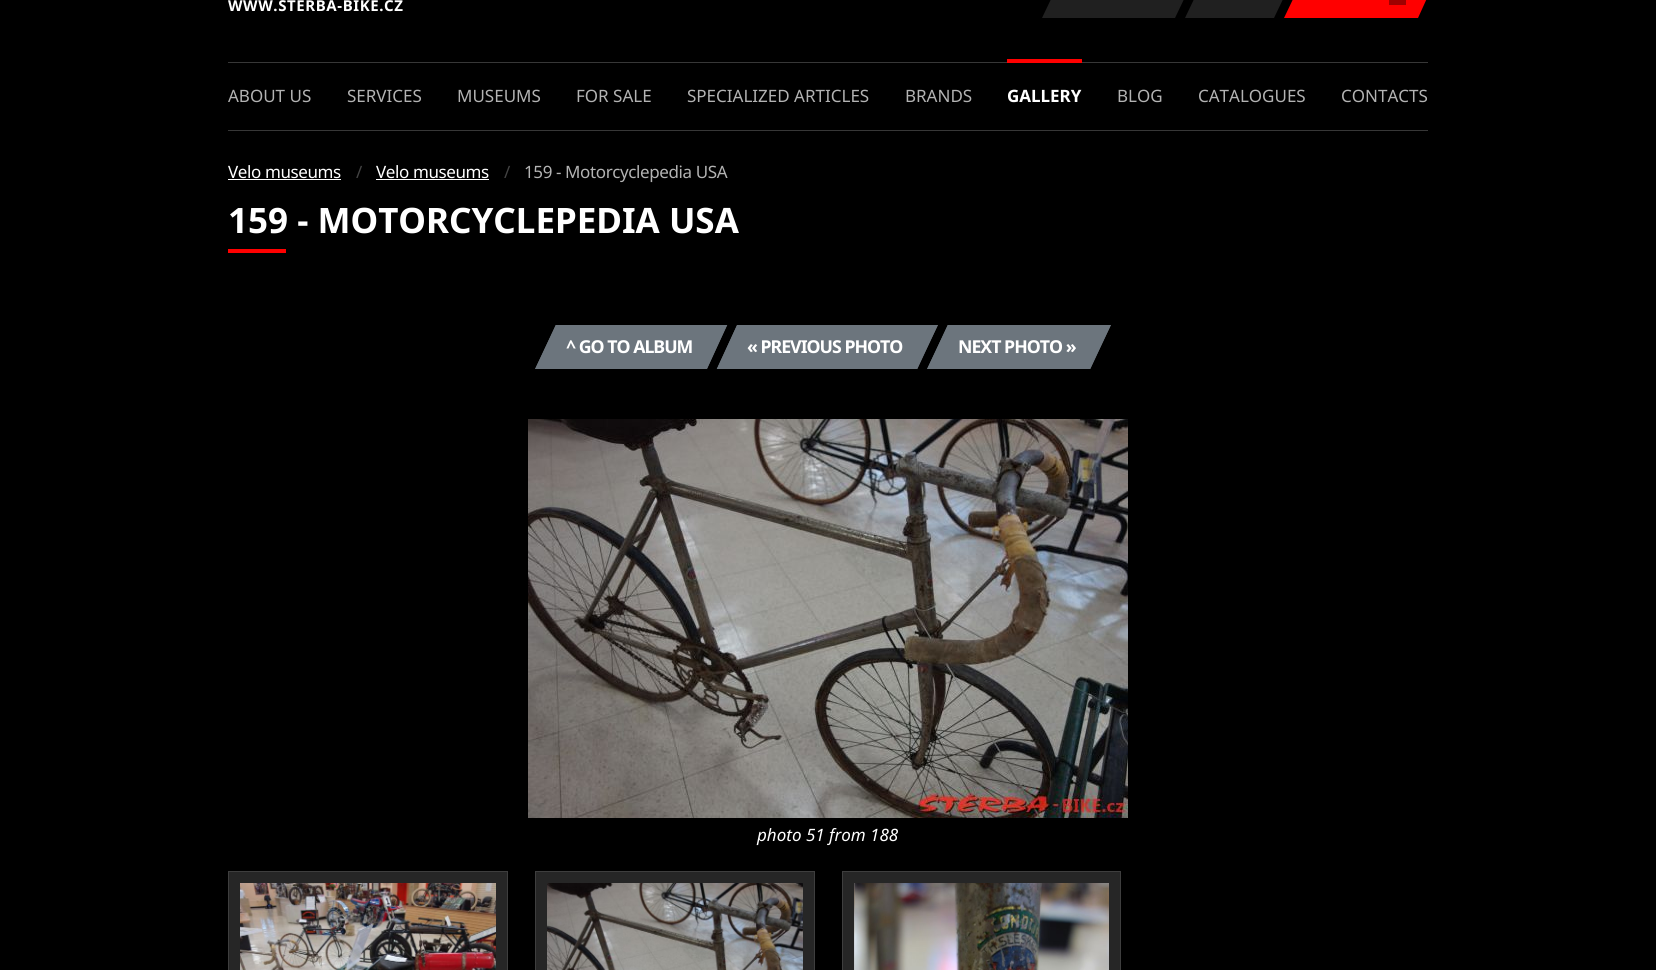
#include <cairo.h>
#include <math.h>
#include <stddef.h>


static void rgb(cairo_t *cr, int r, int g, int b)
{
	cairo_set_source_rgb(cr, r / 255.0, g / 255.0, b / 255.0);
}

static void face(cairo_t *cr, const char *family, double size, int italic, int bold)
{
	cairo_select_font_face(cr, family, italic ? CAIRO_FONT_SLANT_ITALIC : CAIRO_FONT_SLANT_NORMAL,
		bold ? CAIRO_FONT_WEIGHT_BOLD : CAIRO_FONT_WEIGHT_NORMAL);
	cairo_set_font_size(cr, size);
}

static void label(cairo_t *cr, double x, double y, const char *s)
{
	cairo_move_to(cr, x, y);
	cairo_show_text(cr, s);
}

static void tracked(cairo_t *cr, double x, double y, const char *s, double letter, double word)
{
	cairo_move_to(cr, x, y);
	while (*s) {
		char ch[5] = {0};
		int n = 0;
		do ch[n++] = *s++; while ((*s & 0xC0) == 0x80);
		cairo_show_text(cr, ch);
		cairo_rel_move_to(cr, letter + word * (*ch == ' '), 0);
	}
}

static void rect(cairo_t *cr, double x, double y, double w, double h)
{
	cairo_rectangle(cr, x, y, w, h);
	cairo_fill(cr);
}

static void image(cairo_t *cr, const char *path, double x, double y, double w, double h)
{
	cairo_surface_t *image = cairo_image_surface_create_from_png(path);
	cairo_save(cr);
	cairo_set_source_surface(cr, image, x, y);
	cairo_rectangle(cr, x, y, w, h);
	cairo_fill(cr);
	cairo_restore(cr);
	cairo_surface_destroy(image);
}

static void draw(cairo_t *cr) {
	rgb(cr, 0, 0, 0);
	cairo_paint(cr);
	face(cr, "Noto Sans", 15, 0, 1);
	rgb(cr, 255, 255, 255);
	tracked(cr, 228, 11, "WWW.STERBA-BIKE.CZ", 0.6, 0);
	rgb(cr, 32, 32, 32);
	cairo_new_path(cr);
	cairo_move_to(cr, 1063, -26);
	cairo_line_to(cr, 1196, -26);
	cairo_line_to(cr, 1175, 18);
	cairo_line_to(cr, 1042, 18);
	cairo_close_path(cr);
	cairo_fill(cr);
	cairo_new_path(cr);
	cairo_move_to(cr, 1206, -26);
	cairo_line_to(cr, 1295, -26);
	cairo_line_to(cr, 1274, 18);
	cairo_line_to(cr, 1185, 18);
	cairo_close_path(cr);
	cairo_fill(cr);
	rgb(cr, 255, 0, 0);
	cairo_new_path(cr);
	cairo_move_to(cr, 1305, -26);
	cairo_line_to(cr, 1438, -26);
	cairo_line_to(cr, 1418, 18);
	cairo_line_to(cr, 1284, 18);
	cairo_close_path(cr);
	cairo_fill(cr);
	rgb(cr, 158, 0, 0);
	rect(cr, 1389, 0, 17, 5);
	rgb(cr, 55, 55, 55);
	rect(cr, 228, 62, 1200, 1);
	rect(cr, 228, 130, 1200, 1);
	face(cr, "Noto Sans", 17, 0, 0);
	rgb(cr, 179, 179, 179);
	label(cr, 228, 102, "ABOUT US");
	label(cr, 347, 102, "SERVICES");
	label(cr, 457, 102, "MUSEUMS");
	label(cr, 576, 102, "FOR SALE");
	label(cr, 687, 102, "SPECIALIZED ARTICLES");
	label(cr, 905, 102, "BRANDS");
	rgb(cr, 255, 0, 0);
	rect(cr, 1007, 59, 75, 4);
	face(cr, "Noto Sans", 17, 0, 1);
	rgb(cr, 255, 255, 255);
	label(cr, 1007, 102, "GALLERY");
	face(cr, "Noto Sans", 17, 0, 0);
	rgb(cr, 179, 179, 179);
	label(cr, 1117, 102, "BLOG");
	label(cr, 1198, 102, "CATALOGUES");
	label(cr, 1341, 102, "CONTACTS");
	rgb(cr, 255, 255, 255);
	tracked(cr, 228, 178, "Velo museums", -0.4, 0);
	rect(cr, 228, 179, 113, 1);
	rgb(cr, 67, 67, 67);
	tracked(cr, 356, 178, "/", -0.4, 0);
	rgb(cr, 255, 255, 255);
	tracked(cr, 376, 178, "Velo museums", -0.4, 0);
	rect(cr, 376, 179, 113, 1);
	rgb(cr, 67, 67, 67);
	tracked(cr, 504, 178, "/", -0.4, 0);
	rgb(cr, 179, 179, 179);
	tracked(cr, 524, 178, "159 - Motorcyclepedia USA", -0.4, 0);
	face(cr, "Noto Sans", 35, 0, 1);
	rgb(cr, 255, 255, 255);
	label(cr, 228, 233, "159 - MOTORCYCLEPEDIA USA");
	rgb(cr, 255, 0, 0);
	rect(cr, 228, 249, 58, 4);
	rgb(cr, 108, 117, 125);
	cairo_new_path(cr);
	cairo_move_to(cr, 556, 325);
	cairo_line_to(cr, 727, 325);
	cairo_line_to(cr, 707, 369);
	cairo_line_to(cr, 535, 369);
	cairo_close_path(cr);
	cairo_fill(cr);
	cairo_new_path(cr);
	cairo_move_to(cr, 556, 325.5);
	cairo_line_to(cr, 726.5, 325.5);
	cairo_line_to(cr, 706.5, 368.5);
	cairo_line_to(cr, 536, 368.5);
	cairo_close_path(cr);
	cairo_set_line_width(cr, 1);
	cairo_stroke(cr);
	face(cr, "Noto Sans", 17.75, 0, 1);
	rgb(cr, 255, 255, 255);
	tracked(cr, 566, 353, "^ GO TO ALBUM", -1, 0);
	rgb(cr, 108, 117, 125);
	cairo_new_path(cr);
	cairo_move_to(cr, 737, 325);
	cairo_line_to(cr, 938, 325);
	cairo_line_to(cr, 917, 369);
	cairo_line_to(cr, 717, 369);
	cairo_close_path(cr);
	cairo_fill(cr);
	cairo_new_path(cr);
	cairo_move_to(cr, 737.5, 325.5);
	cairo_line_to(cr, 937, 325.5);
	cairo_line_to(cr, 917, 368.5);
	cairo_line_to(cr, 717.5, 368.5);
	cairo_close_path(cr);
	cairo_stroke(cr);
	rgb(cr, 255, 255, 255);
	tracked(cr, 747, 353, "« PREVIOUS PHOTO", -1, 0);
	rgb(cr, 108, 117, 125);
	cairo_new_path(cr);
	cairo_move_to(cr, 948, 325);
	cairo_line_to(cr, 1111, 325);
	cairo_line_to(cr, 1090, 369);
	cairo_line_to(cr, 927, 369);
	cairo_close_path(cr);
	cairo_fill(cr);
	cairo_new_path(cr);
	cairo_move_to(cr, 948, 325.5);
	cairo_line_to(cr, 1110, 325.5);
	cairo_line_to(cr, 1090, 368.5);
	cairo_line_to(cr, 928, 368.5);
	cairo_close_path(cr);
	cairo_stroke(cr);
	rgb(cr, 255, 255, 255);
	tracked(cr, 958, 353, "NEXT PHOTO »", -1, 0);
	image(cr, "image0.png", 528, 419, 600, 399);
	face(cr, "Noto Sans", 17, 1, 0);
	label(cr, 757, 841, "photo 51 from 188");
	rgb(cr, 38, 38, 38);
	cairo_rectangle(cr, 228.5, 871.5, 279, 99);
	cairo_fill_preserve(cr);
	rgb(cr, 62, 62, 62);
	cairo_stroke(cr);
	image(cr, "image1.png", 240, 883, 256, 87);
	rgb(cr, 38, 38, 38);
	cairo_rectangle(cr, 535.5, 871.5, 279, 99);
	cairo_fill_preserve(cr);
	rgb(cr, 62, 62, 62);
	cairo_stroke(cr);
	image(cr, "image2.png", 547, 883, 256, 87);
	rgb(cr, 38, 38, 38);
	cairo_rectangle(cr, 842.5, 871.5, 278, 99);
	cairo_fill_preserve(cr);
	rgb(cr, 62, 62, 62);
	cairo_stroke(cr);
	image(cr, "image3.png", 854, 883, 255, 87);
}

int main(void) {
	cairo_surface_t *surface = cairo_image_surface_create(CAIRO_FORMAT_RGB24, 1656, 970);
	cairo_t *cr = cairo_create(surface);
	cairo_font_options_t *options = cairo_font_options_create();
	cairo_font_options_set_hint_metrics(options, CAIRO_HINT_METRICS_OFF);
	cairo_font_options_set_hint_style(options, CAIRO_HINT_STYLE_NONE);
	cairo_set_font_options(cr, options);
	cairo_set_miter_limit(cr, 4);
	draw(cr);
	cairo_surface_write_to_png(surface, "render.png");
	cairo_font_options_destroy(options);
	cairo_destroy(cr);
	cairo_surface_destroy(surface);
	return 0;
}
